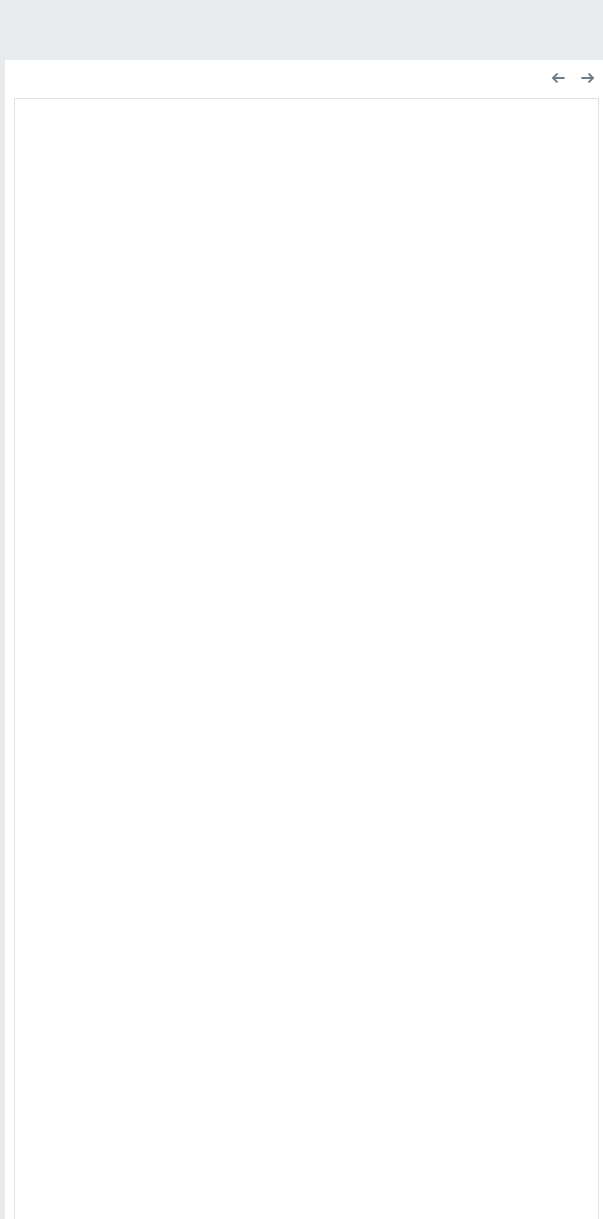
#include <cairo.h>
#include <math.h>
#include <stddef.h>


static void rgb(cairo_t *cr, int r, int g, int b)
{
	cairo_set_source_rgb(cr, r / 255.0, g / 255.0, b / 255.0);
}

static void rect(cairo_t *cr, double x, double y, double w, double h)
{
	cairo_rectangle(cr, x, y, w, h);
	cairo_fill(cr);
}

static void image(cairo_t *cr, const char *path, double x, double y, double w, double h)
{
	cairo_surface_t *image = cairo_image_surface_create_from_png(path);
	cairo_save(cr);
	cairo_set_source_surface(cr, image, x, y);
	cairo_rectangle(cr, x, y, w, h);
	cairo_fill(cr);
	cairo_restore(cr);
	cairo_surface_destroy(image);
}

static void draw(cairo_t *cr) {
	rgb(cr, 231, 235, 238);
	cairo_paint(cr);
	rgb(cr, 255, 255, 255);
	rect(cr, 5, 60, 598, 1159);
	image(cr, "image0.png", 551, 73, 14, 10);
	image(cr, "image1.png", 581, 73, 14, 10);
	rgb(cr, 225, 225, 225);
	rect(cr, 14, 98, 585, 1);
	rect(cr, 598, 98, 1, 1121);
	rect(cr, 14, 98, 1, 1121);
}

int main(void) {
	cairo_surface_t *surface = cairo_image_surface_create(CAIRO_FORMAT_RGB24, 603, 1219);
	cairo_t *cr = cairo_create(surface);
	cairo_font_options_t *options = cairo_font_options_create();
	cairo_font_options_set_hint_metrics(options, CAIRO_HINT_METRICS_OFF);
	cairo_font_options_set_hint_style(options, CAIRO_HINT_STYLE_NONE);
	cairo_set_font_options(cr, options);
	cairo_set_miter_limit(cr, 4);
	draw(cr);
	cairo_surface_write_to_png(surface, "render.png");
	cairo_font_options_destroy(options);
	cairo_destroy(cr);
	cairo_surface_destroy(surface);
	return 0;
}
